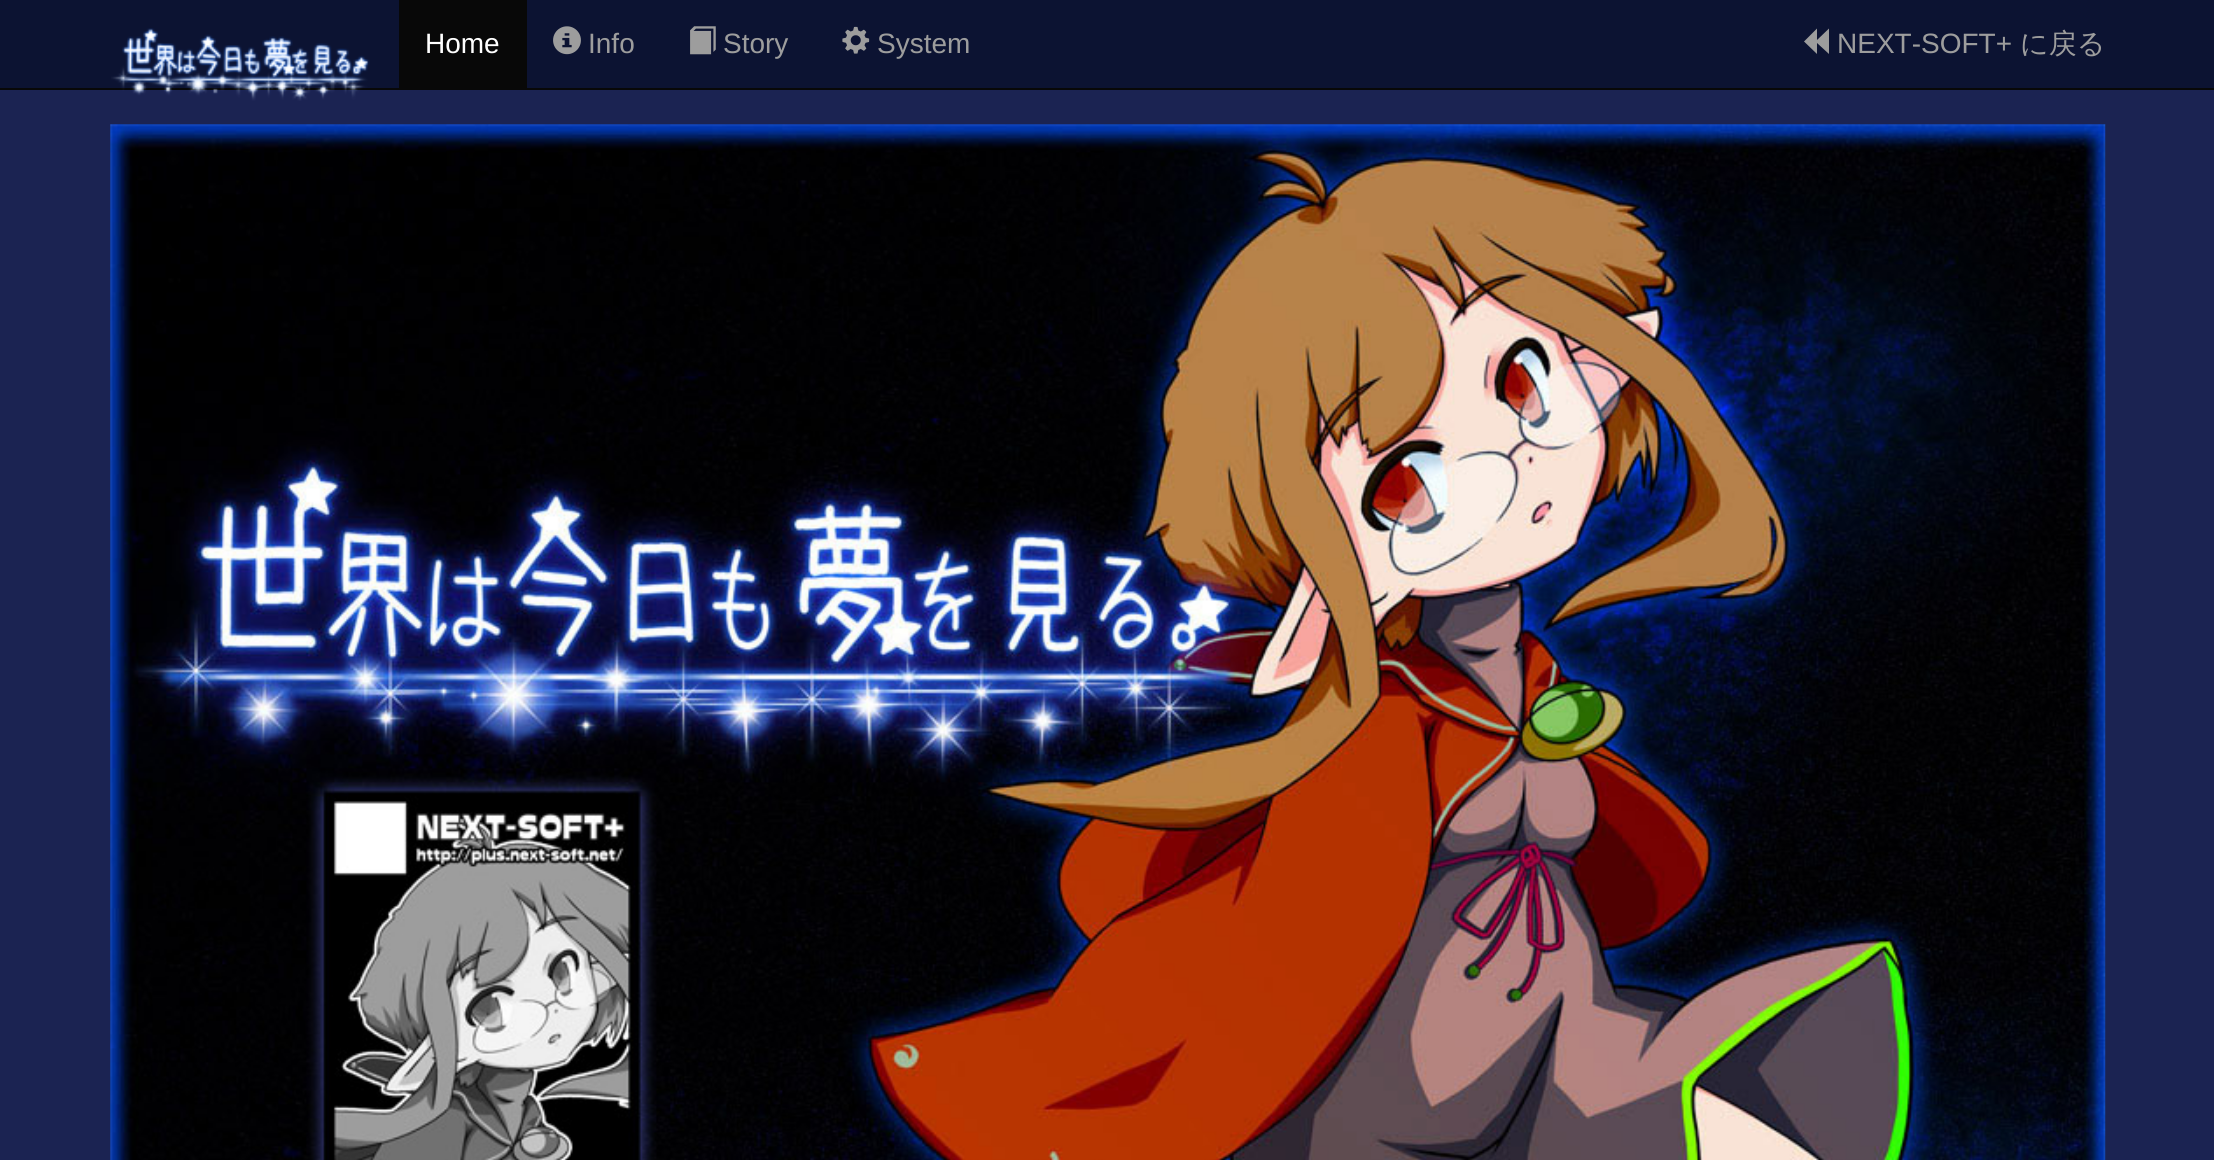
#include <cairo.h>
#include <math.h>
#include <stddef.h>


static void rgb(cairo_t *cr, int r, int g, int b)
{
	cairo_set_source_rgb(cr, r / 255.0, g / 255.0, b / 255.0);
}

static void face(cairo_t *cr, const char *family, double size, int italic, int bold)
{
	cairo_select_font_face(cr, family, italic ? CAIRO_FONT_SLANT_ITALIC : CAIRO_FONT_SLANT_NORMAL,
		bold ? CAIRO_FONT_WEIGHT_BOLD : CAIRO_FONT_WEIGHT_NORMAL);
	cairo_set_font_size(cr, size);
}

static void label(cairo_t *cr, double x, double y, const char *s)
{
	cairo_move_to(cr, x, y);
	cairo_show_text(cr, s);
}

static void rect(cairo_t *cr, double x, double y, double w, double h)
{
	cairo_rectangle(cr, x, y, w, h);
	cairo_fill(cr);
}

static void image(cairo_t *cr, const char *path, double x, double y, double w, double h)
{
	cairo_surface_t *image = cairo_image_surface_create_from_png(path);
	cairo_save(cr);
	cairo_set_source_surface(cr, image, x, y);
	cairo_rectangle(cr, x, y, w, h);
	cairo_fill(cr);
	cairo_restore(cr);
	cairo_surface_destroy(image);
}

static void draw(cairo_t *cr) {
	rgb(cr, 27, 35, 82);
	cairo_paint(cr);
	rgb(cr, 12, 19, 50);
	rect(cr, 0, 0, 2214, 88);
	rgb(cr, 8, 8, 8);
	rect(cr, 0, 88, 2214, 2);
	image(cr, "image0.png", 111, 28, 259, 73);
	rect(cr, 399, 0, 128, 88);
	face(cr, "Liberation Sans", 28, 0, 0);
	rgb(cr, 255, 255, 255);
	label(cr, 425, 53, "Home");
	image(cr, "image1.png", 553, 26, 28, 29);
	rgb(cr, 157, 157, 157);
	label(cr, 588, 53, "Info");
	image(cr, "image2.png", 690, 26, 26, 29);
	label(cr, 723, 53, "Story");
	image(cr, "image3.png", 842, 26, 28, 28);
	label(cr, 877, 53, "System");
	cairo_new_path(cr);
	cairo_move_to(cr, 1804, 41.5);
	cairo_line_to(cr, 1817, 28.5);
	cairo_line_to(cr, 1817, 40);
	cairo_line_to(cr, 1829, 28.5);
	cairo_line_to(cr, 1829, 54);
	cairo_line_to(cr, 1817, 43);
	cairo_line_to(cr, 1817, 54);
	cairo_close_path(cr);
	cairo_fill(cr);
	label(cr, 1837, 53, "NEXT-SOFT+");
	face(cr, "WenQuanYi Zen Hei Medium", 28, 0, 0);
	label(cr, 2020, 53, "に戻る");
	image(cr, "image4.png", 110, 124, 1996, 1036);
}

int main(void) {
	cairo_surface_t *surface = cairo_image_surface_create(CAIRO_FORMAT_RGB24, 2214, 1160);
	cairo_t *cr = cairo_create(surface);
	cairo_font_options_t *options = cairo_font_options_create();
	cairo_font_options_set_hint_metrics(options, CAIRO_HINT_METRICS_OFF);
	cairo_font_options_set_hint_style(options, CAIRO_HINT_STYLE_NONE);
	cairo_set_font_options(cr, options);
	cairo_set_miter_limit(cr, 4);
	draw(cr);
	cairo_surface_write_to_png(surface, "render.png");
	cairo_font_options_destroy(options);
	cairo_destroy(cr);
	cairo_surface_destroy(surface);
	return 0;
}
